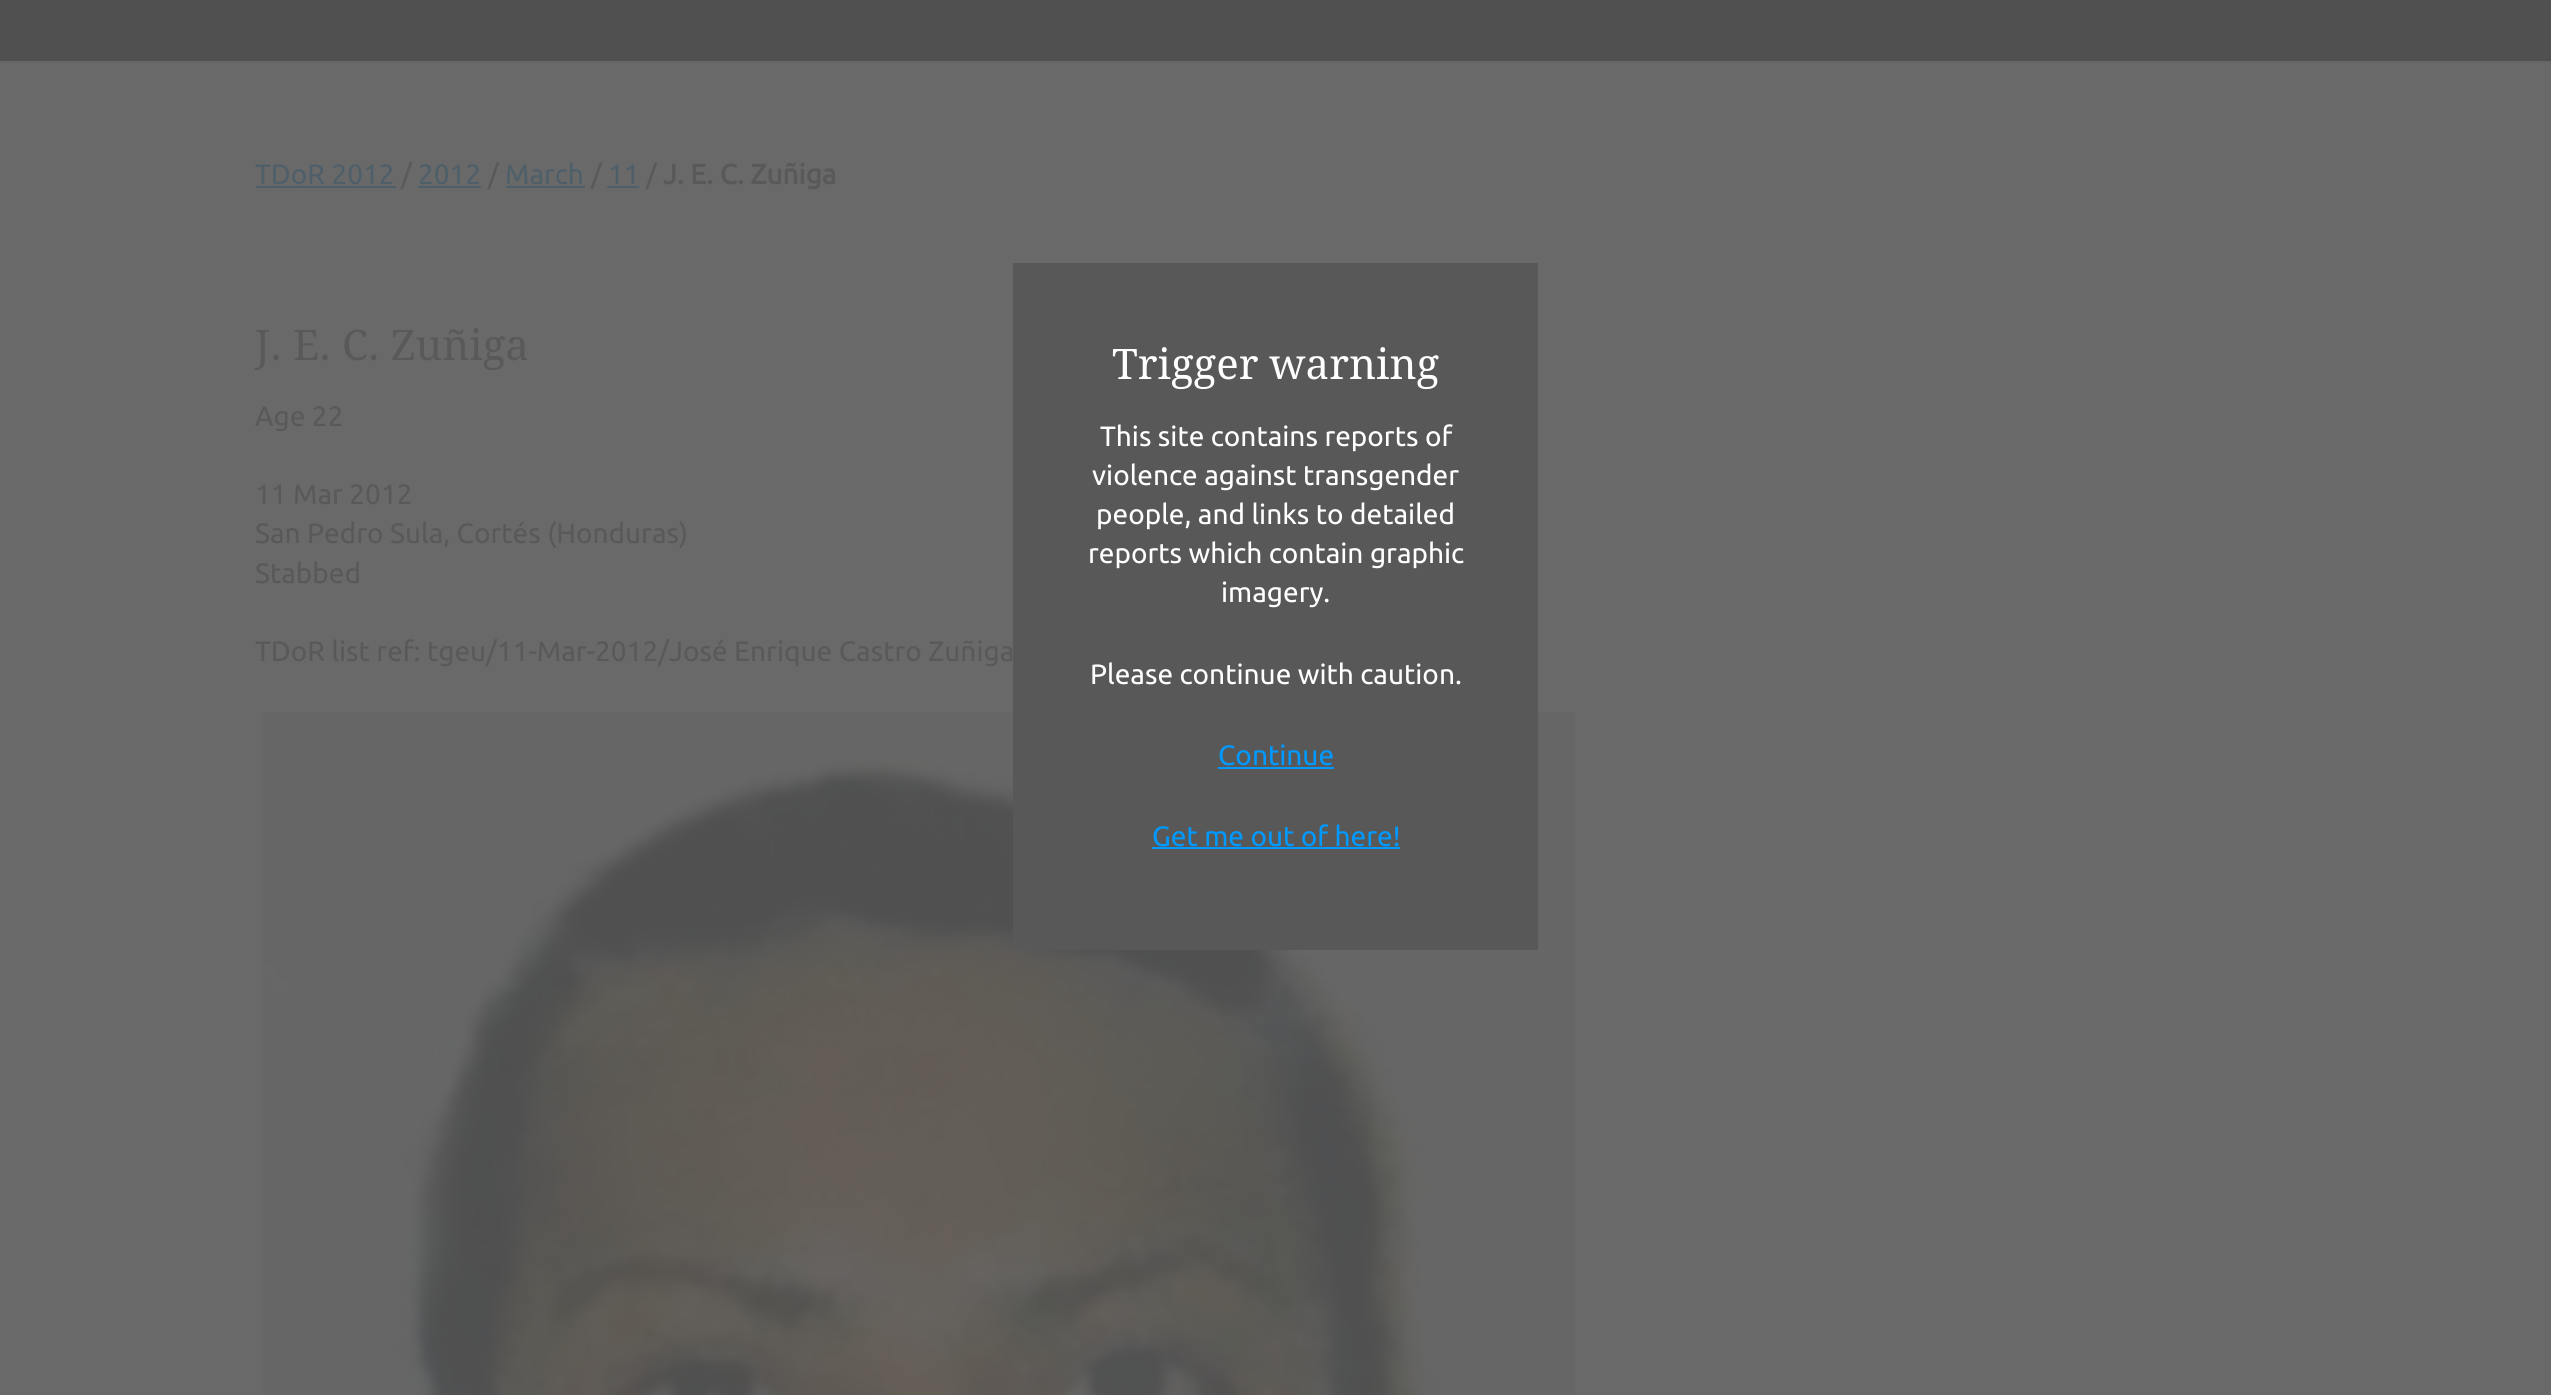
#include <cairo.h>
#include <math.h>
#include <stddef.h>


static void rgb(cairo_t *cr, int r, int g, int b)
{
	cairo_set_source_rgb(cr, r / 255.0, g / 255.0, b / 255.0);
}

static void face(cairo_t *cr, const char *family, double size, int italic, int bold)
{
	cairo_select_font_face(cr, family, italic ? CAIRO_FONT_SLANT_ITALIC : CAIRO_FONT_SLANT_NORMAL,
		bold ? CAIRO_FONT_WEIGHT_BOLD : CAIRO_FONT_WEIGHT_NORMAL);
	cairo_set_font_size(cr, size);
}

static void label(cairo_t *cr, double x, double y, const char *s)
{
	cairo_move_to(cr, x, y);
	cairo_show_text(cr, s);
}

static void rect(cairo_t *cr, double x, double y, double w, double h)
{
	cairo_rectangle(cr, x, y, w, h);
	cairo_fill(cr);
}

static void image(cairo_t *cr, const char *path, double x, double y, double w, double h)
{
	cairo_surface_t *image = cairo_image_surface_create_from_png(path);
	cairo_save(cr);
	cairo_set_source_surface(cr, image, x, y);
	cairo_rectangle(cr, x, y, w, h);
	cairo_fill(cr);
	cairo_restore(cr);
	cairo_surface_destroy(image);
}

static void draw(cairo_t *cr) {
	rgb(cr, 105, 105, 105);
	cairo_paint(cr);
	rgb(cr, 80, 80, 80);
	rect(cr, 0, 0, 2551, 61);
	rgb(cr, 102, 102, 102);
	rect(cr, 0, 61, 2551, 2);
	face(cr, "Ubuntu", 28, 0, 0);
	rgb(cr, 79, 95, 105);
	label(cr, 255, 184, "TDoR 2012");
	rect(cr, 256, 186, 140, 2);
	rgb(cr, 89, 89, 89);
	label(cr, 401, 184, "/");
	rgb(cr, 79, 95, 105);
	label(cr, 418, 184, "2012");
	rect(cr, 418, 186, 63, 2);
	rgb(cr, 89, 89, 89);
	label(cr, 488, 184, "/");
	rgb(cr, 79, 95, 105);
	label(cr, 505, 184, "March");
	rect(cr, 506, 186, 79, 2);
	rgb(cr, 89, 89, 89);
	label(cr, 591, 184, "/");
	rgb(cr, 79, 95, 105);
	label(cr, 608, 184, "11");
	rect(cr, 607, 186, 32, 2);
	rgb(cr, 89, 89, 89);
	label(cr, 646, 184, "/");
	face(cr, "Ubuntu", 28, 0, 1);
	label(cr, 663, 184, "J. E. C. Zuñiga");
	face(cr, "Droid Serif", 42, 0, 0);
	label(cr, 255, 360, "J. E. C. Zuñiga");
	face(cr, "Ubuntu", 28, 0, 0);
	label(cr, 255, 426, "Age 22");
	label(cr, 255, 504, "11 Mar 2012");
	label(cr, 255, 543, "San Pedro Sula, Cortés (Honduras)");
	label(cr, 255, 583, "Stabbed");
	label(cr, 255, 661, "TDoR list ref: tgeu/11-Mar-2012/José Enrique Castro Zuñiga");
	image(cr, "image0.png", 262, 711, 1313, 684);
	rgb(cr, 88, 88, 88);
	rect(cr, 1013, 263, 525, 687);
	face(cr, "Droid Serif", 42, 0, 0);
	rgb(cr, 255, 255, 255);
	label(cr, 1112, 379, "Trigger warning");
	face(cr, "Ubuntu", 28, 0, 0);
	label(cr, 1100, 446, "This site contains reports of");
	label(cr, 1092, 485, "violence against transgender");
	label(cr, 1096, 524, "people, and links to detailed");
	label(cr, 1088, 563, "reports which contain graphic");
	label(cr, 1221, 602, "imagery.");
	label(cr, 1090, 684, "Please continue with caution.");
	rgb(cr, 0, 153, 255);
	label(cr, 1218, 765, "Continue");
	rect(cr, 1218, 767, 116, 2);
	label(cr, 1152, 846, "Get me out of here!");
	rect(cr, 1152, 847, 248, 2);
}

int main(void) {
	cairo_surface_t *surface = cairo_image_surface_create(CAIRO_FORMAT_RGB24, 2551, 1395);
	cairo_t *cr = cairo_create(surface);
	cairo_font_options_t *options = cairo_font_options_create();
	cairo_font_options_set_hint_metrics(options, CAIRO_HINT_METRICS_OFF);
	cairo_font_options_set_hint_style(options, CAIRO_HINT_STYLE_NONE);
	cairo_set_font_options(cr, options);
	cairo_set_miter_limit(cr, 4);
	draw(cr);
	cairo_surface_write_to_png(surface, "render.png");
	cairo_font_options_destroy(options);
	cairo_destroy(cr);
	cairo_surface_destroy(surface);
	return 0;
}
